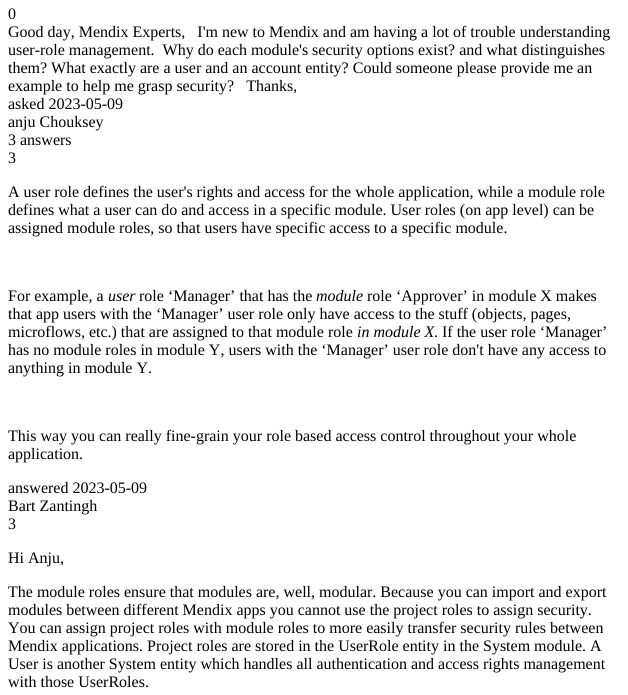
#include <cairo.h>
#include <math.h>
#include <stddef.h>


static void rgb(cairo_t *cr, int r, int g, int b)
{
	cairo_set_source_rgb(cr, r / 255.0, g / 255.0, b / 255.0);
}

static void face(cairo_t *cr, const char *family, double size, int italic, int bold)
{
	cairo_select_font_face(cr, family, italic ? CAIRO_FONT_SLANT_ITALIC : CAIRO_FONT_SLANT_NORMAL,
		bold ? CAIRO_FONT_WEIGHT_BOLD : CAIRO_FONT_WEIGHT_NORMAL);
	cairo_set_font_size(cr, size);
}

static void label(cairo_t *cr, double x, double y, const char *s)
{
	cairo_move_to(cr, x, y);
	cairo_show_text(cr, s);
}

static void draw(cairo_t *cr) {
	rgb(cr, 255, 255, 255);
	cairo_paint(cr);
	face(cr, "Liberation Serif", 16, 0, 0);
	rgb(cr, 0, 0, 0);
	label(cr, 8, 19, "0");
	label(cr, 8, 37, "Good day, Mendix Experts,   I'm new to Mendix and am having a lot of trouble understanding");
	label(cr, 8, 55, "user-role management.  Why do each module's security options exist? and what distinguishes");
	label(cr, 8, 73, "them? What exactly are a user and an account entity? Could someone please provide me an");
	label(cr, 8, 91, "example to help me grasp security?   Thanks,");
	label(cr, 8, 109, "asked 2023-05-09");
	label(cr, 8, 127, "anju Chouksey");
	label(cr, 8, 145, "3 answers");
	label(cr, 8, 163, "3");
	label(cr, 8, 197, "A user role defines the user's rights and access for the whole application, while a module role");
	label(cr, 8, 215, "defines what a user can do and access in a specific module. User roles (on app level) can be");
	label(cr, 8, 233, "assigned module roles, so that users have specific access to a specific module.");
	label(cr, 8, 301, "For example, a");
	face(cr, "Liberation Serif", 16, 1, 0);
	label(cr, 108, 301, "user");
	face(cr, "Liberation Serif", 16, 0, 0);
	label(cr, 139, 301, "role ‘Manager’ that has the");
	face(cr, "Liberation Serif", 16, 1, 0);
	label(cr, 316, 301, "module");
	face(cr, "Liberation Serif", 16, 0, 0);
	label(cr, 367, 301, "role ‘Approver’ in module X makes");
	label(cr, 8, 319, "that app users with the ‘Manager’ user role only have access to the stuff (objects, pages,");
	label(cr, 8, 337, "microflows, etc.) that are assigned to that module role");
	face(cr, "Liberation Serif", 16, 1, 0);
	label(cr, 357, 337, "in module X");
	face(cr, "Liberation Serif", 16, 0, 0);
	label(cr, 434, 337, ". If the user role ‘Manager’");
	label(cr, 8, 355, "has no module roles in module Y, users with the ‘Manager’ user role don't have any access to");
	label(cr, 8, 373, "anything in module Y.");
	label(cr, 8, 441, "This way you can really fine-grain your role based access control throughout your whole");
	label(cr, 8, 459, "application.");
	label(cr, 8, 493, "answered 2023-05-09");
	label(cr, 8, 511, "Bart Zantingh");
	label(cr, 8, 529, "3");
	label(cr, 8, 563, "Hi Anju,");
	label(cr, 8, 597, "The module roles ensure that modules are, well, modular. Because you can import and export");
	label(cr, 8, 615, "modules between different Mendix apps you cannot use the project roles to assign security.");
	label(cr, 8, 633, "You can assign project roles with module roles to more easily transfer security rules between");
	label(cr, 8, 651, "Mendix applications. Project roles are stored in the UserRole entity in the System module. A");
	label(cr, 8, 669, "User is another System entity which handles all authentication and access rights management");
	label(cr, 8, 687, "with those UserRoles.");
}

int main(void) {
	cairo_surface_t *surface = cairo_image_surface_create(CAIRO_FORMAT_RGB24, 628, 695);
	cairo_t *cr = cairo_create(surface);
	cairo_font_options_t *options = cairo_font_options_create();
	cairo_font_options_set_hint_metrics(options, CAIRO_HINT_METRICS_OFF);
	cairo_font_options_set_hint_style(options, CAIRO_HINT_STYLE_NONE);
	cairo_set_font_options(cr, options);
	cairo_set_miter_limit(cr, 4);
	draw(cr);
	cairo_surface_write_to_png(surface, "render.png");
	cairo_font_options_destroy(options);
	cairo_destroy(cr);
	cairo_surface_destroy(surface);
	return 0;
}
